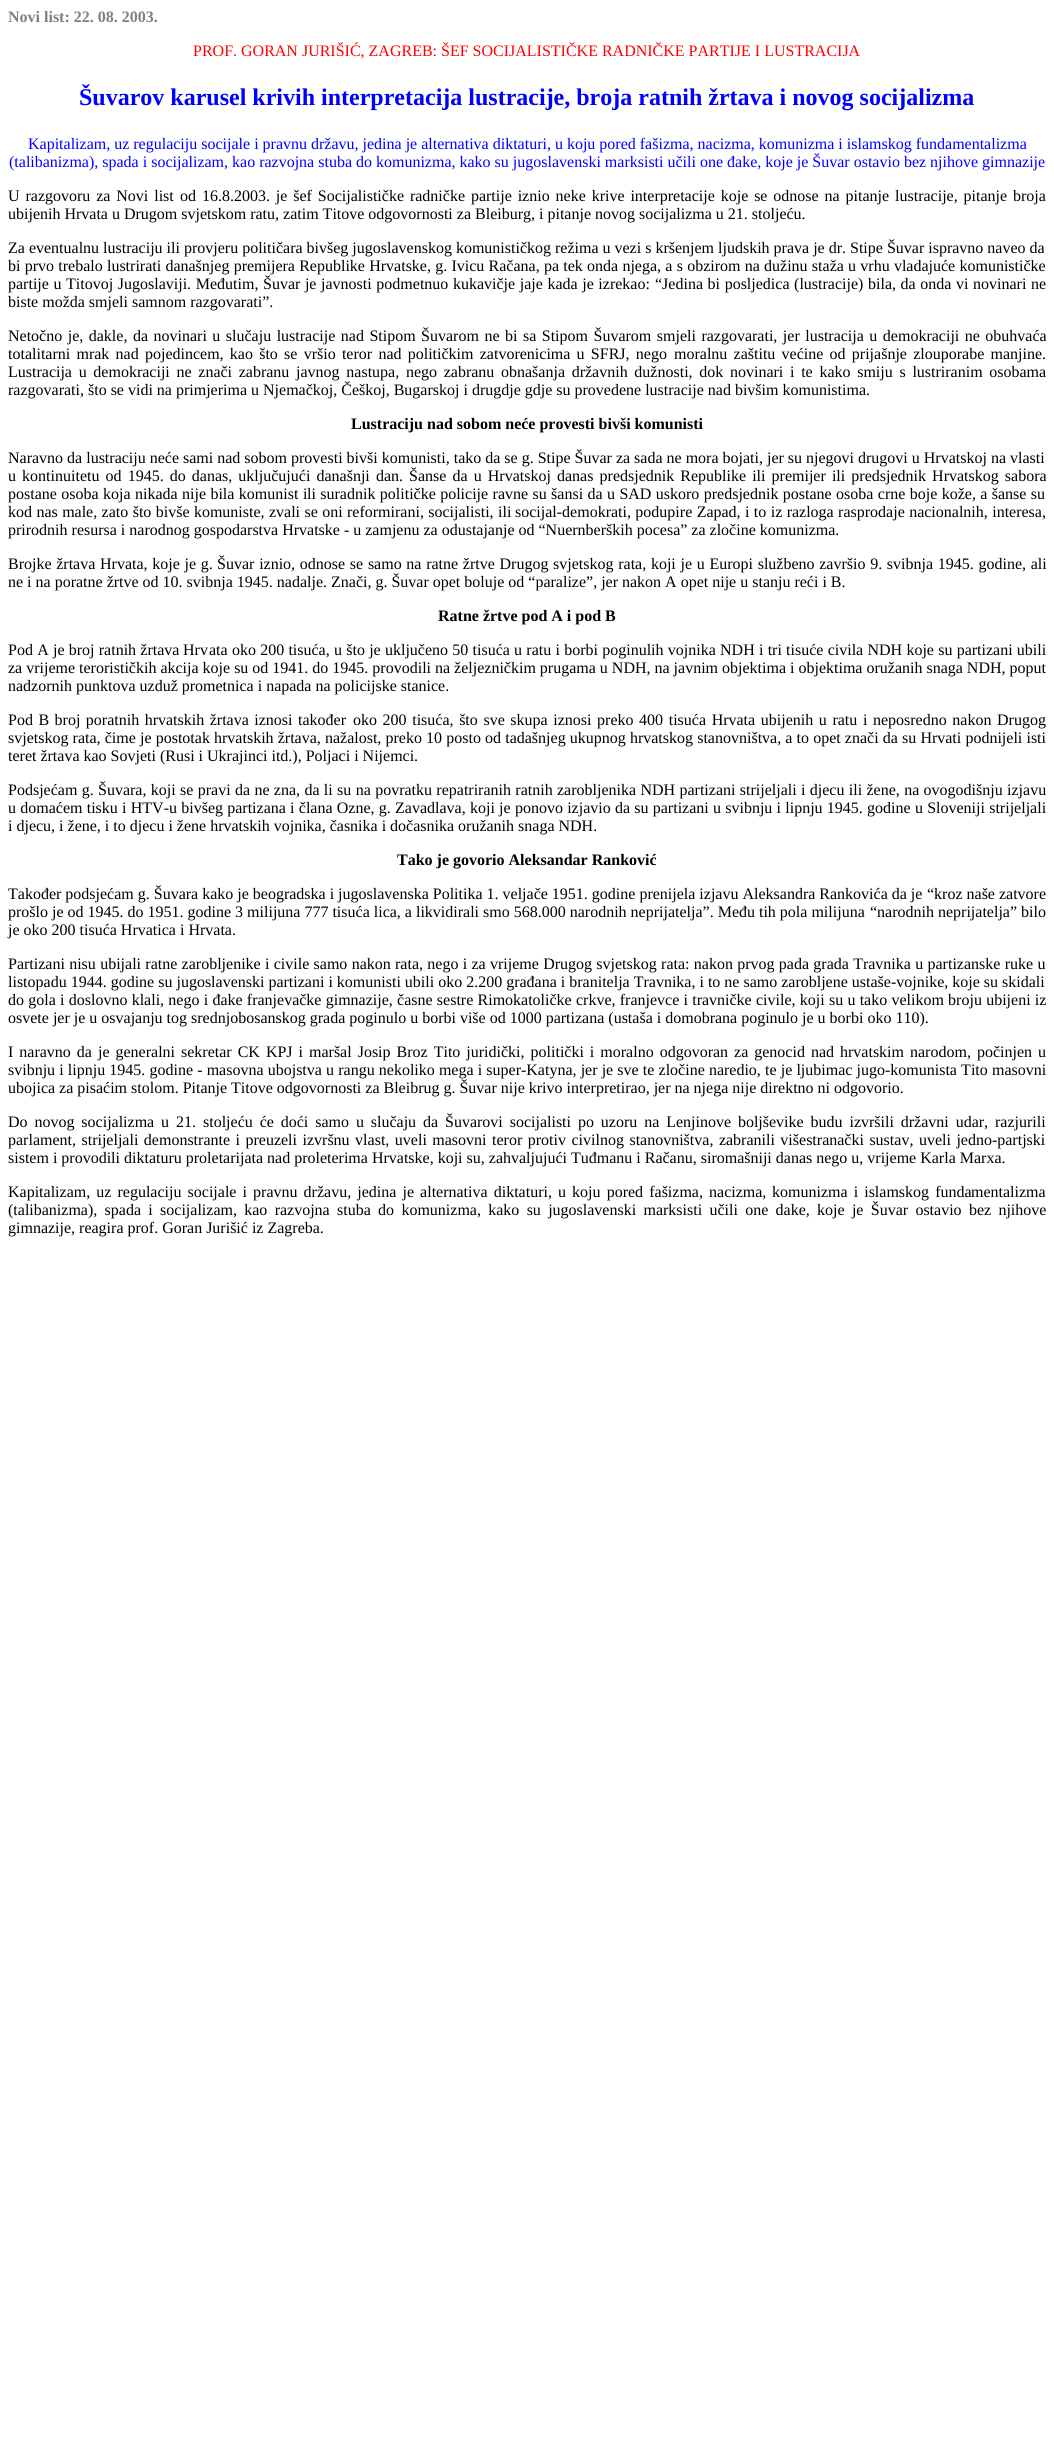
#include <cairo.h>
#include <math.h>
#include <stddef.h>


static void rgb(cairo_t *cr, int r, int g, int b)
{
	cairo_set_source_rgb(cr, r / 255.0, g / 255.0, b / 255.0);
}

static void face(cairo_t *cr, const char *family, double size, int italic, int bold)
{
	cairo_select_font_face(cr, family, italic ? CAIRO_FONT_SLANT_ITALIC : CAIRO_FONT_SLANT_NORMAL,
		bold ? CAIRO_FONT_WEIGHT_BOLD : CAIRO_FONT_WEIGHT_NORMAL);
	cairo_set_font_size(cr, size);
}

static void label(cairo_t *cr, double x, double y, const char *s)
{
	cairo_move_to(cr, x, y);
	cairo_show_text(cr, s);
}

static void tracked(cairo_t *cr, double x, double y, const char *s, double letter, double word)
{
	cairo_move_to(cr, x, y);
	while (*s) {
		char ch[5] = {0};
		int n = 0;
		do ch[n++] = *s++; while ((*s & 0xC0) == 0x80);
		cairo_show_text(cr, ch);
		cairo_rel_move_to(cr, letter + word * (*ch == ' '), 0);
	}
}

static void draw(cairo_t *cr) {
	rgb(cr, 255, 255, 255);
	cairo_paint(cr);
	face(cr, "Liberation Serif", 16, 0, 1);
	rgb(cr, 128, 128, 128);
	label(cr, 8, 22, "Novi list: 22. 08. 2003.");
	face(cr, "Liberation Serif", 16, 0, 0);
	rgb(cr, 255, 0, 0);
	label(cr, 193, 56, "PROF. GORAN JURIŠIĆ, ZAGREB: ŠEF SOCIJALISTIČKE RADNIČKE PARTIJE I LUSTRACIJA");
	face(cr, "Liberation Serif", 24, 0, 1);
	rgb(cr, 0, 0, 255);
	label(cr, 79, 105, "Šuvarov karusel krivih interpretacija lustracije, broja ratnih žrtava i novog socijalizma");
	face(cr, "Liberation Serif", 16, 0, 0);
	label(cr, 28, 149, "Kapitalizam, uz regulaciju socijale i pravnu državu, jedina je alternativa diktaturi, u koju pored fašizma, nacizma, komunizma i islamskog fundamentalizma");
	label(cr, 9, 167, "(talibanizma), spada i socijalizam, kao razvojna stuba do komunizma, kako su jugoslavenski marksisti učili one đake, koje je Šuvar ostavio bez njihove gimnazije");
	rgb(cr, 0, 0, 0);
	tracked(cr, 8, 201, "U razgovoru za Novi list", 0, 1.9);
	tracked(cr, 180, 201, "od 16.8.2003. je šef Socijalističke radničke partije iznio neke krive interpretacije koje se odnose na pitanje lustracije, pitanje broja", 0, 1.9);
	label(cr, 8, 219, "ubijenih Hrvata u Drugom svjetskom ratu, zatim Titove odgovornosti za Bleiburg, i pitanje novog socijalizma u 21. stoljeću.");
	label(cr, 8, 253, "Za eventualnu lustraciju ili provjeru političara bivšeg jugoslavenskog komunističkog režima u vezi s kršenjem ljudskih prava je dr. Stipe Šuvar ispravno naveo da");
	tracked(cr, 8, 271, "bi prvo trebalo lustrirati današnjeg premijera Republike Hrvatske, g. Ivicu Račana, pa tek onda njega, a s obzirom na dužinu staža u vrhu vladajuće komunističke", 0, 0.25);
	tracked(cr, 8, 289, "partije u Titovoj Jugoslaviji. Međutim, Šuvar je javnosti podmetnuo kukavičje jaje kada je izrekao:", 0, 0.6);
	tracked(cr, 655, 289, "“Jedina bi posljedica (lustracije) bila, da onda vi novinari ne", 0, 0.6);
	label(cr, 8, 307, "biste možda smjeli samnom razgovarati”.");
	tracked(cr, 8, 341, "Netočno je, dakle, da novinari u slučaju lustracije nad Stipom Šuvarom ne bi sa Stipom Šuvarom smjeli razgovarati, jer lustracija u demokraciji ne obuhvaća", 0, 1.5);
	tracked(cr, 8, 359, "totalitarni mrak nad pojedincem, kao što se vršio teror nad političkim zatvorenicima u SFRJ, nego", 0, 2.25);
	tracked(cr, 674, 359, "moralnu zaštitu većine od prijašnje zlouporabe manjine.", 0, 2.25);
	tracked(cr, 8, 377, "Lustracija u demokraciji ne znači zabranu javnog nastupa, nego zabranu obnašanja državnih dužnosti, dok novinari i te kako smiju s lustriranim osobama", 0, 2.7);
	label(cr, 8, 395, "razgovarati, što se vidi na primjerima u Njemačkoj, Češkoj, Bugarskoj i drugdje gdje su provedene lustracije nad bivšim komunistima.");
	face(cr, "Liberation Serif", 16, 0, 1);
	label(cr, 351, 429, "Lustraciju nad sobom neće provesti bivši komunisti");
	face(cr, "Liberation Serif", 16, 0, 0);
	label(cr, 8, 463, "Naravno da lustraciju neće sami nad sobom provesti bivši komunisti, tako da se g. Stipe Šuvar za sada ne mora bojati, jer su njegovi drugovi u Hrvatskoj na vlasti");
	tracked(cr, 8, 481, "u kontinuitetu od 1945. do danas, uključujući današnji dan. Šanse da u Hrvatskoj danas predsjednik Republike ili premijer ili predsjednik Hrvatskog sabora", 0, 2.1);
	tracked(cr, 8, 499, "postane osoba koja nikada nije bila komunist", 0, 0.4);
	label(cr, 303, 499, "i");
	tracked(cr, 307, 499, "li suradnik političke policije ravne su šansi da u SAD uskoro predsjednik postane osoba crne boje kože, a šanse su", 0, 0.4);
	tracked(cr, 8, 517, "kod nas male, zato što bivše komuniste, zvali se oni reformirani, socijalisti, ili", 0, 0.4);
	tracked(cr, 515, 517, "socijal-demokrati, podupire Zapad, i to iz razloga rasprodaje nacionalnih, interesa,", 0, 0.4);
	label(cr, 8, 535, "prirodnih resursa i narodnog gospodarstva Hrvatske - u zamjenu za odustajanje od “Nuernberških pocesa” za zločine komunizma.");
	label(cr, 8, 569, "Bro");
	tracked(cr, 32, 569, "jke žrtava Hrvata, koje je g.", 0, 0.7);
	label(cr, 217, 569, "Š");
	tracked(cr, 226, 569, "uvar iznio, odnose se samo na ratne žrtve Drugog svjetskog rata, koji je u Europi službeno završio 9. svibnja 1945. godine, ali", 0, 0.7);
	label(cr, 8, 587, "ne i na poratne žrtve od 10. svibnja 1945. nadalje. Znači, g. Šuvar opet boluje od “paralize”, jer nakon A opet nije u stanju reći i B.");
	face(cr, "Liberation Serif", 16, 0, 1);
	label(cr, 438, 621, "Ratne žrtve pod A i pod B");
	face(cr, "Liberation Serif", 16, 0, 0);
	tracked(cr, 8, 655, "Pod A je broj ratnih žrtava", 0, 0.25);
	label(cr, 183, 655, "Hrv");
	tracked(cr, 209, 655, "ata oko 200 tisuća, u što je uključeno 50 tisuća u ratu i borbi poginulih vojnika NDH i tri tisuće civila NDH koje su partizani ubili", 0, 0.25);
	label(cr, 8, 673, "za vrijeme terorističkih akcija koje su od 1941. do 1945. provodili na željezničkim prugama u NDH, na javnim objektima i objektima oružanih snaga NDH, poput");
	label(cr, 8, 691, "nadzornih punktova uzduž prometnica i napada na policijske stanice.");
	tracked(cr, 8, 725, "Pod B broj poratnih hrvatskih žrtava iznosi također", 0, 1.5);
	tracked(cr, 353, 725, "oko 200 tisuća, što sve skupa iznosi preko 400 tisuća Hrvata ubijenih u ratu i neposredno nakon Drugog", 0, 1.6);
	tracked(cr, 8, 743, "svjetskog rata, čime je postotak hrvatskih žrtava, nažalost, preko 10 posto od tadašnjeg ukupnog hrvatskog stanovništva, a to opet znači da su Hrvati podnijeli isti", 0, 0.15);
	label(cr, 8, 761, "teret žrtava kao Sovjeti (Rusi i Ukrajinci itd.), Poljaci i Nijemci.");
	tracked(cr, 8, 795, "Podsjećam g. Šuvara, koji se pravi da ne zna, da li su na povratku repatriranih ratnih zarobljenika NDH partizani strijeljali i djecu ili žene, na ovogodišnju izjavu", 0, 0.35);
	tracked(cr, 8, 813, "u domaćem tisku i HTV-u bivšeg partizana i člana Ozne, g. Zavadlava, koji je ponovo izjavio da su partizani u svibnju i lipnju 1945. godine u Sloveniji strijeljali", 0, 0.25);
	label(cr, 8, 831, "i djecu, i žene, i to djecu i žene hrvatskih vojnika, časnika i dočasnika oružanih snaga NDH.");
	face(cr, "Liberation Serif", 16, 0, 1);
	label(cr, 397, 865, "Tako je govorio Aleksandar Ranković");
	face(cr, "Liberation Serif", 16, 0, 0);
	label(cr, 8, 899, "Također podsjećam g. Šuvara kako je beogradska i jugoslavenska Politika 1. veljače 1951. godine prenijela izjavu Aleksandra Rankovića da je");
	label(cr, 927, 899, "“kroz naše zatvore");
	label(cr, 8, 917, "prošlo je od 1945. do 1951. godine 3 milijuna 777 tisuća lica, a likvidirali smo 568.000 narodnih neprijatelja”. Među tih pola milijuna");
	label(cr, 870, 917, "“narodnih neprijatelja” bilo");
	label(cr, 8, 935, "je oko 200 tisuća Hrvatica i Hrvata.");
	tracked(cr, 8, 969, "Partizani nisu ubijali ratne zarobljenike i civile samo nakon rata, nego i za vrijeme Drugog svjetskog rata: nakon prvog pada grada Travnika u partizanske ruke u", 0, 0.3);
	label(cr, 8, 987, "listopadu 1944. godine su jugoslavenski partizani i komunisti ubili oko 2.200 građana i branitelja Travnika, i to ne samo zarobljene ustaše-vojnike, koje su skidali");
	tracked(cr, 8, 1005, "do gola i doslovno klali, nego i đake franjevačke gimnazije, časne sestre Rimokatoličke crkve, franjevce i travničke civile, koji su u tako velikom broju ubijeni iz", 0, 0.25);
	label(cr, 8, 1023, "osvete jer je u osvajanju tog srednjobosanskog grada poginulo u borbi više od 1000 partizana (ustaša i domobrana poginulo je u borbi oko 110).");
	tracked(cr, 8, 1057, "I naravno da je generalni sekretar CK KPJ i maršal Josip Broz Tito juridički, politički i moralno odgovoran za genocid nad hrvatskim narodom, počinjen u", 0, 2);
	tracked(cr, 8, 1075, "svibnju i lipnju 1945. godine - masovna ubojstva u rangu nekoliko mega i super-Katyna, jer je sve te zločine naredio, te je ljubimac jugo-komunista Tito masovni", 0, 0.15);
	label(cr, 8, 1093, "ubojica za pisaćim stolom. Pitanje Titove odgovornosti za Bleibrug g. Šuvar nije krivo interpretirao, jer na njega nije direktno ni odgovorio.");
	tracked(cr, 8, 1127, "Do novog socijalizma u 21.", 0, 2.9);
	tracked(cr, 203, 1127, "stoljeću će doći samo u slučaju da Šuvarovi socijalisti po uzoru na Lenjinove boljševike budu izvršili državni udar, razjurili", 0, 2.9);
	tracked(cr, 8, 1145, "parlament, strijeljali demonstrante i preuzeli izvršnu vlast, uveli masovni teror protiv civilnog stanovništva, zabranili višestranački sustav, uveli jedno-partjski", 0, 1.5);
	label(cr, 8, 1163, "sistem i provodili diktaturu proletarijata nad proleterima Hrvatske, koji su, zahvaljujući Tuđmanu i Račanu, siromašniji danas nego u, vrijeme Karla Marxa.");
	tracked(cr, 8, 1197, "Kapitalizam, uz regulaciju socijale i pravnu državu, jedina je alternativa diktaturi, u koju pored fašizma, nacizma,", 0, 2.1);
	tracked(cr, 772, 1197, "komunizma i islamskog funda", 0, 2.1);
	label(cr, 971, 1197, "mentalizma");
	tracked(cr, 8, 1215, "(talibanizma), spada i socijalizam, kao razvojna stuba do komunizma, kako su jugoslavenski marksisti učili one dake, koje je Šuvar ostavio bez njihove", 0, 3.3);
	label(cr, 8, 1233, "gimnazije, reagira prof. Goran Jurišić iz Zagreba.");
}

int main(void) {
	cairo_surface_t *surface = cairo_image_surface_create(CAIRO_FORMAT_RGB24, 1054, 2441);
	cairo_t *cr = cairo_create(surface);
	cairo_font_options_t *options = cairo_font_options_create();
	cairo_font_options_set_hint_metrics(options, CAIRO_HINT_METRICS_OFF);
	cairo_font_options_set_hint_style(options, CAIRO_HINT_STYLE_NONE);
	cairo_set_font_options(cr, options);
	cairo_set_miter_limit(cr, 4);
	draw(cr);
	cairo_surface_write_to_png(surface, "render.png");
	cairo_font_options_destroy(options);
	cairo_destroy(cr);
	cairo_surface_destroy(surface);
	return 0;
}
